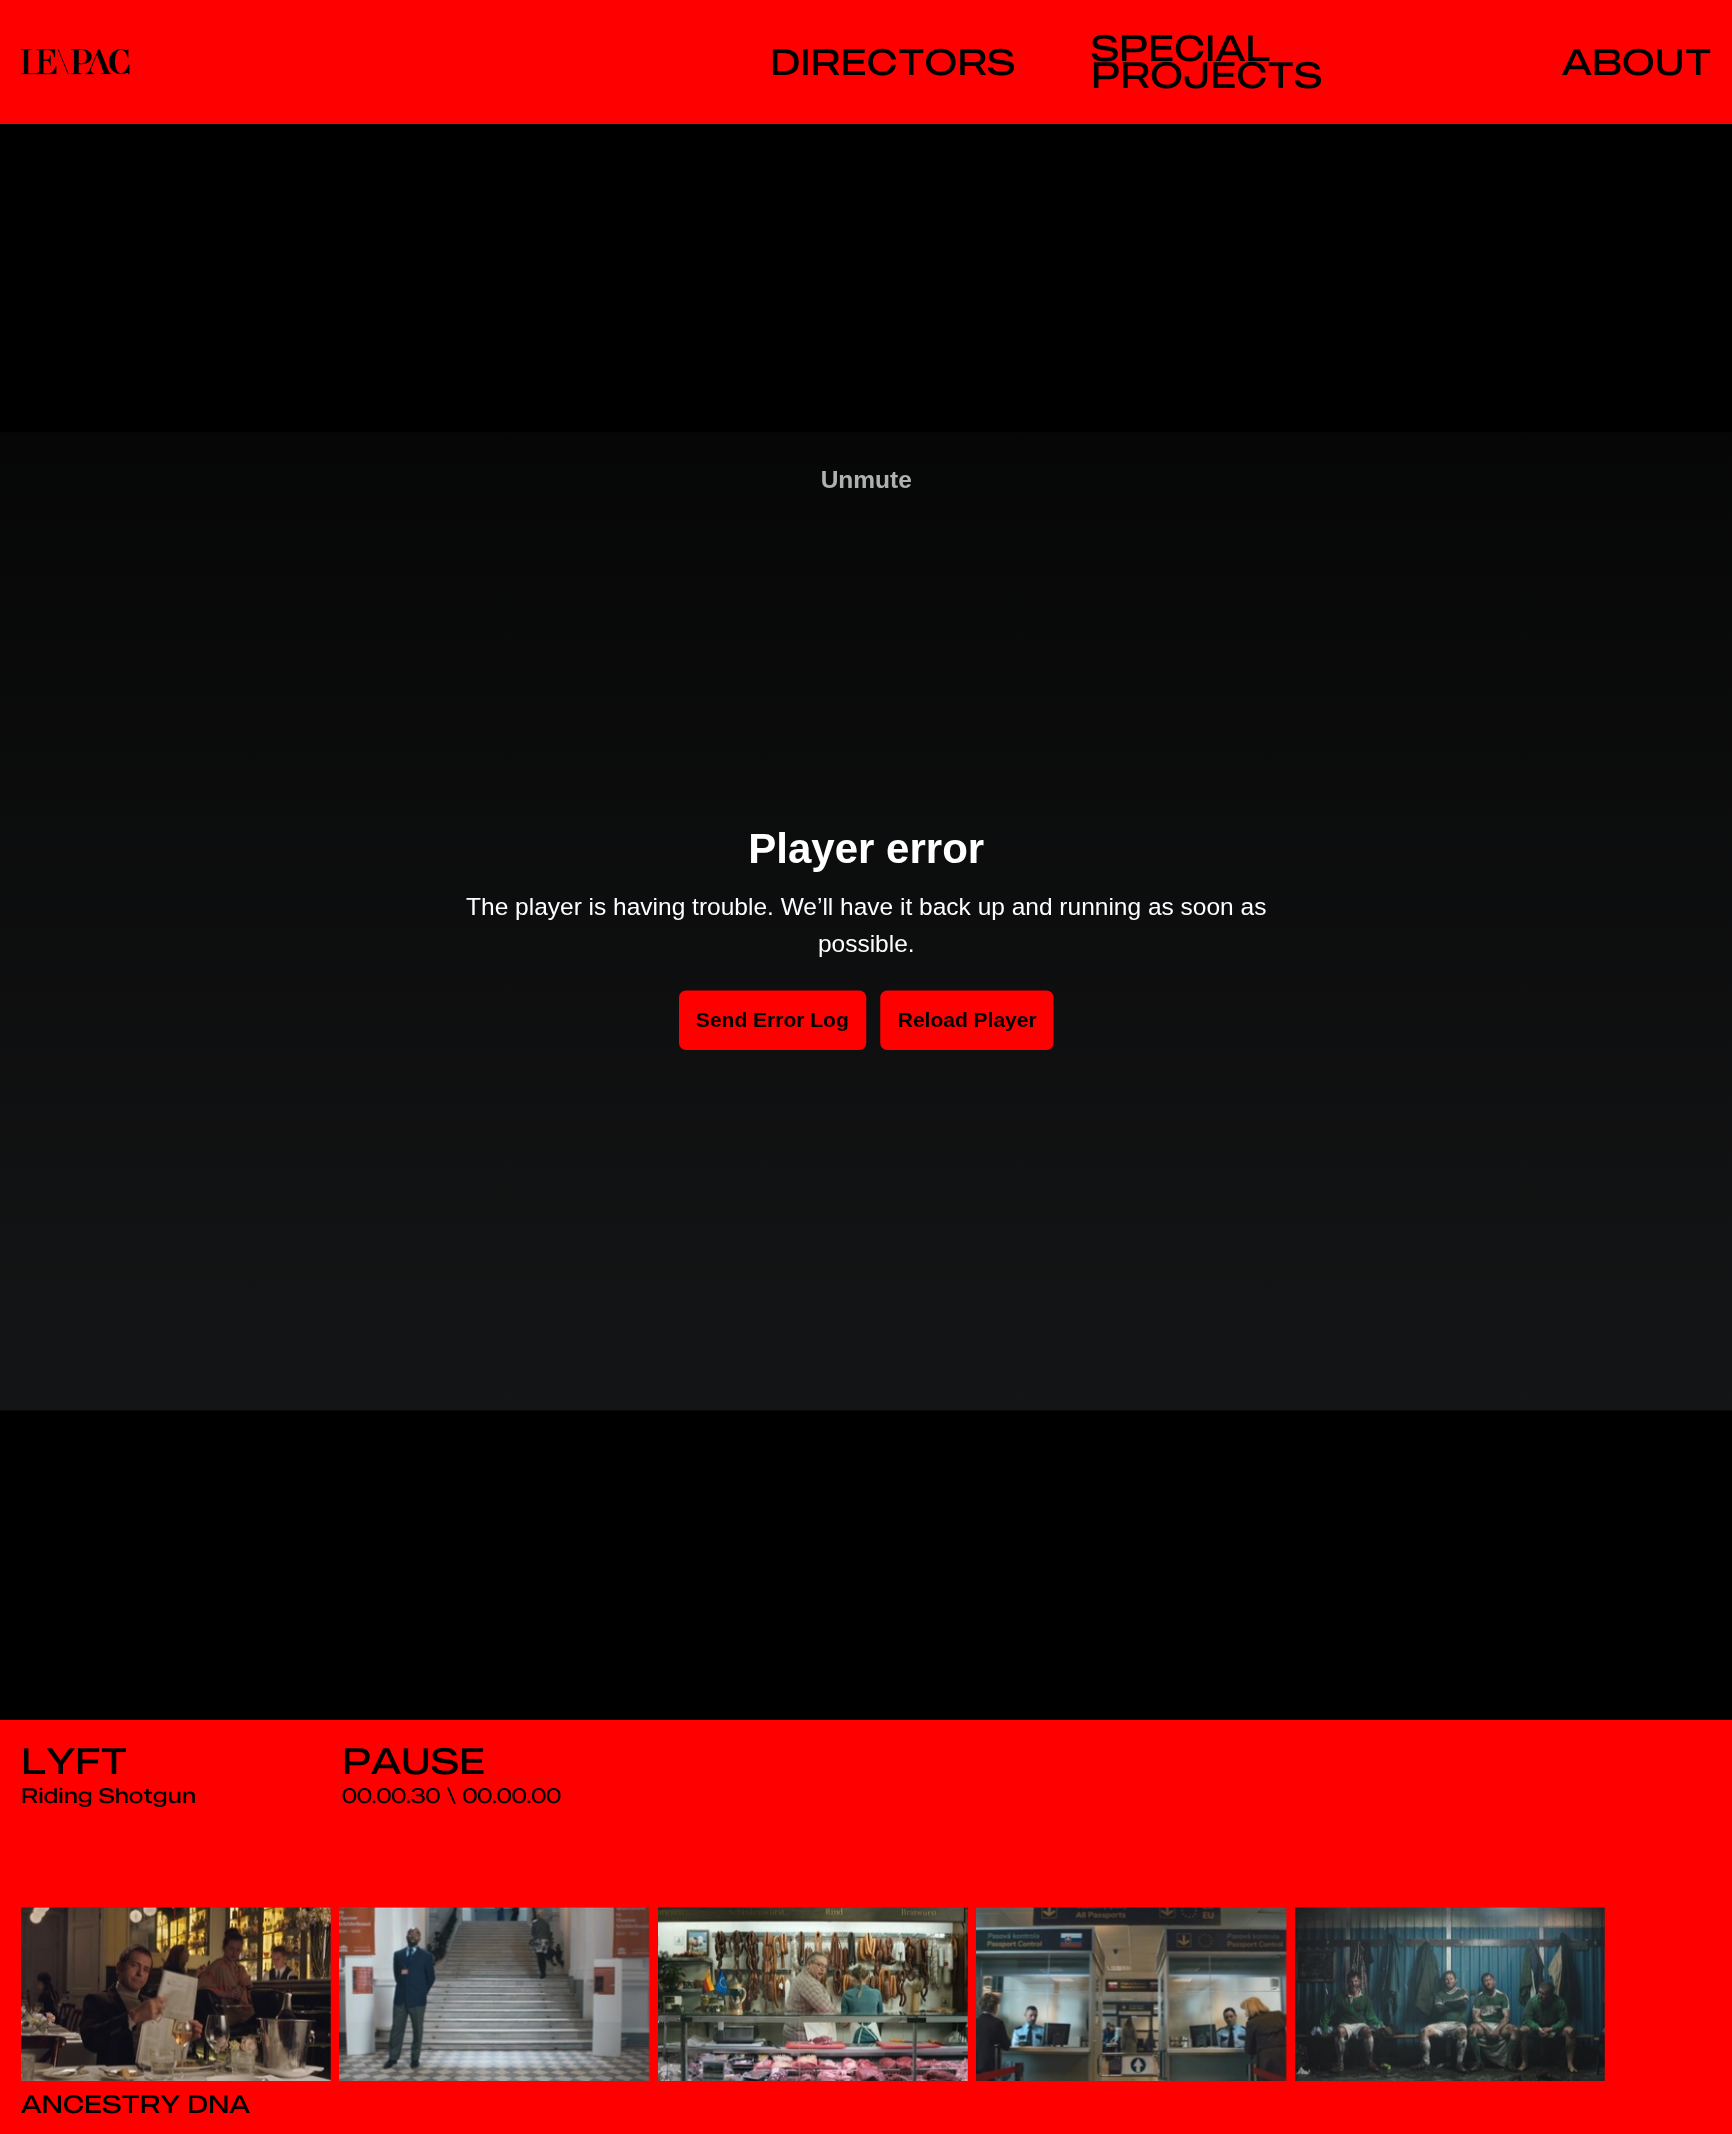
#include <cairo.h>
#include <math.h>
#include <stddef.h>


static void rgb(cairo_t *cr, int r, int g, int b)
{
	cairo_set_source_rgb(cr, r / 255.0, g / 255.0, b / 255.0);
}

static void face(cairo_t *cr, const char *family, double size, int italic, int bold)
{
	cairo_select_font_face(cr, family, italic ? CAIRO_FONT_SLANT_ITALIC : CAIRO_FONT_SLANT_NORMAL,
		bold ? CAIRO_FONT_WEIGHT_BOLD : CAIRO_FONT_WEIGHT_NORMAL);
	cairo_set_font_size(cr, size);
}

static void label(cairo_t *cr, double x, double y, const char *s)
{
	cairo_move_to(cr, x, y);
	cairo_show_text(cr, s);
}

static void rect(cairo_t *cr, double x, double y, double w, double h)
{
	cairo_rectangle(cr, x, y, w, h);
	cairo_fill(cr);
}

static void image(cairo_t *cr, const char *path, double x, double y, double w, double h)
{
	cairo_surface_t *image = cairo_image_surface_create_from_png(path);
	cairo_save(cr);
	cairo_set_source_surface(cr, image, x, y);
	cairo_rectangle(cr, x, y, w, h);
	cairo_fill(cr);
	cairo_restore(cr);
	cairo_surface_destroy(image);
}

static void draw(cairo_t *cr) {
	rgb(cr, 255, 0, 0);
	cairo_paint(cr);
	image(cr, "image0.png", 21, 49, 109, 26);
	face(cr, "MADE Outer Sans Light", 36.75, 0, 0);
	rgb(cr, 0, 0, 0);
	label(cr, 770, 75, "DIRECTORS");
	label(cr, 1091, 61, "SPECIAL");
	label(cr, 1091, 88, "PROJECTS");
	label(cr, 1562, 75, "ABOUT");
	rect(cr, 0, 124, 1732, 1596);
	image(cr, "image1.png", 0, 432, 1732, 979);
	label(cr, 21, 1774, "LYFT");
	face(cr, "MADE Outer Sans Light", 21, 0, 0);
	label(cr, 21, 1803, "Riding Shotgun");
	face(cr, "MADE Outer Sans Light", 36.75, 0, 0);
	label(cr, 342, 1774, "PAUSE");
	face(cr, "MADE Outer Sans Light", 21, 0, 0);
	label(cr, 342, 1803, "00.00.30 \\ 00.00.00");
	image(cr, "image2.png", 21, 1907, 310, 174);
	image(cr, "image3.png", 339, 1907, 311, 174);
	image(cr, "image4.png", 658, 1907, 310, 174);
	image(cr, "image5.png", 976, 1907, 311, 174);
	image(cr, "image6.png", 1295, 1907, 310, 174);
	face(cr, "MADE Outer Sans Light", 25.25, 0, 0);
	label(cr, 21, 2113, "ANCESTRY DNA");
}

int main(void) {
	cairo_surface_t *surface = cairo_image_surface_create(CAIRO_FORMAT_RGB24, 1732, 2134);
	cairo_t *cr = cairo_create(surface);
	cairo_font_options_t *options = cairo_font_options_create();
	cairo_font_options_set_hint_metrics(options, CAIRO_HINT_METRICS_OFF);
	cairo_font_options_set_hint_style(options, CAIRO_HINT_STYLE_NONE);
	cairo_set_font_options(cr, options);
	cairo_set_miter_limit(cr, 4);
	draw(cr);
	cairo_surface_write_to_png(surface, "render.png");
	cairo_font_options_destroy(options);
	cairo_destroy(cr);
	cairo_surface_destroy(surface);
	return 0;
}
